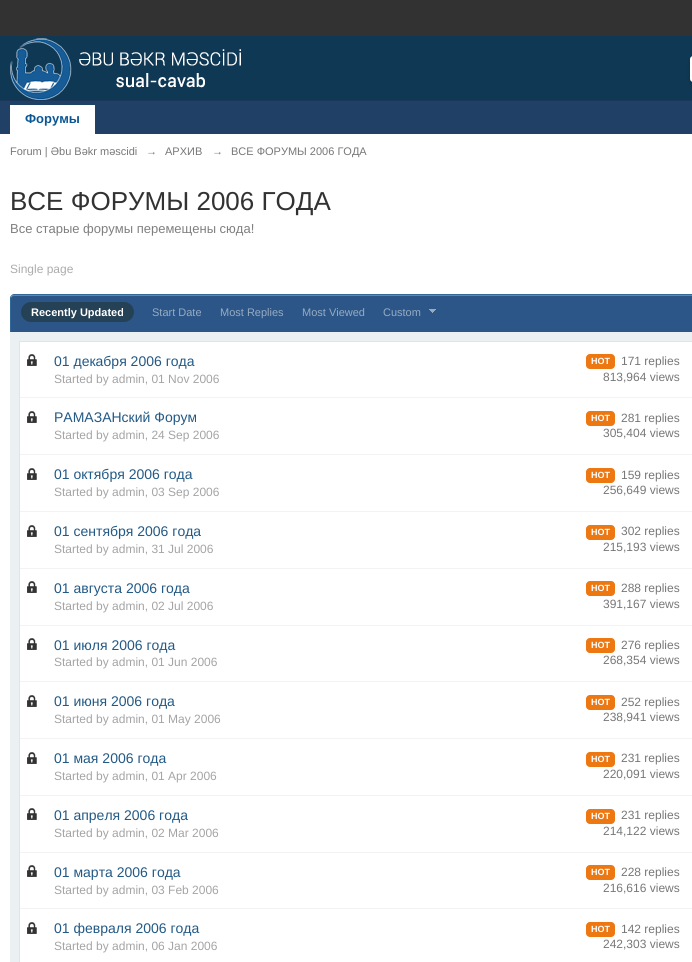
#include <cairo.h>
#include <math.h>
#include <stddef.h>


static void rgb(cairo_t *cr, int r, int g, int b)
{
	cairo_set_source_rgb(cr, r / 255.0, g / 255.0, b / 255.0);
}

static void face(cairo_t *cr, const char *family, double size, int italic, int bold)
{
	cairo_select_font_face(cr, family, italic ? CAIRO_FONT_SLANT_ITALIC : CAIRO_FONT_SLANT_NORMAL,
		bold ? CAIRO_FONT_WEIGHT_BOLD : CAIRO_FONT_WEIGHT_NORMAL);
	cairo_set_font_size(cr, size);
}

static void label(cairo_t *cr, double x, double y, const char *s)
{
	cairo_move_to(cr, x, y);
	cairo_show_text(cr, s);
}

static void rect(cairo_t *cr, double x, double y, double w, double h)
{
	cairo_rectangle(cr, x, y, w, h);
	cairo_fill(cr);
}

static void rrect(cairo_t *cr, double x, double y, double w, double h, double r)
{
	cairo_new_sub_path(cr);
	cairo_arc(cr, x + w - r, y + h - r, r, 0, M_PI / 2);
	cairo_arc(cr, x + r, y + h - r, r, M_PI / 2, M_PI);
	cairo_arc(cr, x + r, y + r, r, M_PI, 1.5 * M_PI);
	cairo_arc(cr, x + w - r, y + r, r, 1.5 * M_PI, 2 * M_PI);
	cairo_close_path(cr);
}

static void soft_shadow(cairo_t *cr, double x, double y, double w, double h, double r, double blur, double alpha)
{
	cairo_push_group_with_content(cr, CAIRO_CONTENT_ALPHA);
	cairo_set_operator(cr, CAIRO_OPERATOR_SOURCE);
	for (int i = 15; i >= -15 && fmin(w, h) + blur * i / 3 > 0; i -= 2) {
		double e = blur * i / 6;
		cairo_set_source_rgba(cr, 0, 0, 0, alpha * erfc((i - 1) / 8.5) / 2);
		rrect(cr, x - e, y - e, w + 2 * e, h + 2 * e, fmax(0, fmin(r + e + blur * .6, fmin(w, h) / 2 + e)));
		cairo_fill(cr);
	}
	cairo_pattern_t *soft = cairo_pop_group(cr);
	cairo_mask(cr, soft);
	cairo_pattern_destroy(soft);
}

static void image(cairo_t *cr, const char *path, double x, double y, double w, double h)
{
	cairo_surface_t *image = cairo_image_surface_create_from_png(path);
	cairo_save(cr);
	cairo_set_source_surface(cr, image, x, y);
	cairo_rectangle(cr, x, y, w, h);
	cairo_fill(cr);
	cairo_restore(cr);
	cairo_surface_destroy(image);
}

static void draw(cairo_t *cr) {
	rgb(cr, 50, 50, 50);
	cairo_paint(cr);
	rgb(cr, 15, 56, 84);
	rect(cr, 0, 36, 692, 64);
	rgb(cr, 27, 55, 89);
	rect(cr, 0, 100, 692, 1);
	image(cr, "image0.png", 10, 38, 231, 62);
	rgb(cr, 0, 0, 0);
	soft_shadow(cr, 690, 58, 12, 26, 4, 2, 0.2);
	rgb(cr, 255, 255, 255);
	cairo_new_path(cr);
	cairo_move_to(cr, 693, 56);
	cairo_line_to(cr, 692, 56);
	cairo_curve_to(cr, 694, 56, 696, 58, 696, 60);
	cairo_line_to(cr, 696, 78);
	cairo_curve_to(cr, 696, 80, 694, 82, 692, 82);
	cairo_line_to(cr, 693, 82);
	cairo_curve_to(cr, 691.5, 82, 690, 80.5, 690, 79);
	cairo_line_to(cr, 690, 59);
	cairo_curve_to(cr, 690, 57.5, 691.5, 56, 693, 56);
	cairo_close_path(cr);
	cairo_fill(cr);
	rgb(cr, 32, 64, 102);
	rect(cr, 0, 101, 692, 33);
	rgb(cr, 255, 255, 255);
	rect(cr, 10, 105, 85, 29);
	face(cr, "Liberation Sans", 13, 0, 1);
	rgb(cr, 11, 87, 148);
	label(cr, 25, 123, "Форумы");
	rgb(cr, 255, 255, 255);
	rect(cr, 0, 134, 692, 828);
	face(cr, "Liberation Sans", 11, 0, 0);
	rgb(cr, 119, 119, 119);
	label(cr, 10, 155, "Forum | Əbu Bəkr məscidi");
	label(cr, 146, 155, "→");
	label(cr, 165, 155, "АРХИВ");
	label(cr, 212, 155, "→");
	label(cr, 231, 155, "ВСЕ ФОРУМЫ 2006 ГОДА");
	face(cr, "Liberation Sans", 26, 0, 0);
	rgb(cr, 50, 50, 50);
	label(cr, 10, 210, "ВСЕ ФОРУМЫ 2006 ГОДА");
	face(cr, "Liberation Sans", 13, 0, 0);
	rgb(cr, 127, 127, 127);
	label(cr, 10, 233, "Все старые форумы перемещены сюда!");
	face(cr, "Liberation Sans", 12, 0, 0);
	rgb(cr, 172, 172, 172);
	label(cr, 10, 273, "Single page");
	rgb(cr, 44, 86, 135);
	cairo_new_path(cr);
	cairo_move_to(cr, 14, 295);
	cairo_line_to(cr, 692, 295);
	cairo_curve_to(cr, 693.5, 295, 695, 296.5, 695, 298);
	cairo_line_to(cr, 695, 332);
	cairo_line_to(cr, 11, 332);
	cairo_line_to(cr, 11, 298);
	cairo_curve_to(cr, 11, 296.5, 12.5, 295, 14, 295);
	cairo_close_path(cr);
	cairo_fill(cr);
	rgb(cr, 82, 140, 188);
	cairo_new_path(cr);
	cairo_move_to(cr, 14, 296);
	cairo_line_to(cr, 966, 296);
	cairo_curve_to(cr, 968, 296, 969, 297, 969, 299);
	cairo_curve_to(cr, 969, 297, 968, 295, 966, 295);
	cairo_line_to(cr, 14, 295);
	cairo_curve_to(cr, 12, 295, 11, 297, 11, 299);
	cairo_curve_to(cr, 11, 297, 12, 296, 14, 296);
	cairo_close_path(cr);
	cairo_fill(cr);
	rgb(cr, 49, 104, 151);
	cairo_set_fill_rule(cr, CAIRO_FILL_RULE_EVEN_ODD);
	cairo_new_path(cr);
	cairo_move_to(cr, 14, 294);
	cairo_line_to(cr, 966, 294);
	cairo_curve_to(cr, 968, 294, 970, 296, 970, 298);
	cairo_line_to(cr, 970, 332);
	cairo_line_to(cr, 10, 332);
	cairo_line_to(cr, 10, 298);
	cairo_curve_to(cr, 10, 296, 12, 294, 14, 294);
	cairo_close_path(cr);
	cairo_move_to(cr, 14, 295);
	cairo_line_to(cr, 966, 295);
	cairo_curve_to(cr, 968, 295, 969, 296, 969, 298);
	cairo_line_to(cr, 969, 332);
	cairo_line_to(cr, 11, 332);
	cairo_line_to(cr, 11, 298);
	cairo_curve_to(cr, 11, 296, 12, 295, 14, 295);
	cairo_close_path(cr);
	cairo_fill(cr);
	rgb(cr, 36, 65, 86);
	rrect(cr, 21, 302, 113, 20, 10);
	cairo_fill(cr);
	face(cr, "Liberation Sans", 11, 0, 1);
	rgb(cr, 255, 255, 255);
	label(cr, 31, 316, "Recently Updated");
	face(cr, "Liberation Sans", 11, 0, 0);
	rgb(cr, 150, 171, 195);
	label(cr, 152, 316, "Start Date");
	label(cr, 220, 316, "Most Replies");
	label(cr, 302, 316, "Most Viewed");
	label(cr, 383, 316, "Custom");
	image(cr, "image1.png", 429, 309, 7, 4);
	rgb(cr, 235, 240, 243);
	rect(cr, 10, 332, 682, 630);
	rgb(cr, 255, 255, 255);
	cairo_rectangle(cr, 19.5, 341.5, 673, 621);
	cairo_fill_preserve(cr);
	rgb(cr, 219, 228, 239);
	cairo_set_line_width(cr, 1);
	cairo_stroke(cr);
	image(cr, "image2.png", 27, 354, 10, 12);
	face(cr, "Liberation Sans", 14, 0, 0);
	rgb(cr, 34, 89, 133);
	label(cr, 54, 366, "01 декабря 2006 года");
	face(cr, "Liberation Sans", 12, 0, 0);
	rgb(cr, 164, 164, 164);
	label(cr, 54, 383, "Started by admin, 01 Nov 2006");
	rgb(cr, 237, 119, 16);
	rrect(cr, 586, 354, 29, 15, 4);
	cairo_fill(cr);
	face(cr, "Liberation Sans", 9, 0, 1);
	rgb(cr, 255, 255, 255);
	label(cr, 591, 364, "HOT");
	face(cr, "Liberation Sans", 12, 0, 0);
	rgb(cr, 119, 119, 119);
	label(cr, 621, 365, "171 replies");
	label(cr, 603, 381, "813,964 views");
	rgb(cr, 243, 243, 243);
	rect(cr, 20, 397, 672, 1);
	image(cr, "image2.png", 27, 411, 10, 12);
	face(cr, "Liberation Sans", 14, 0, 0);
	rgb(cr, 34, 89, 133);
	label(cr, 54, 422, "РАМАЗАНский Форум");
	face(cr, "Liberation Sans", 12, 0, 0);
	rgb(cr, 164, 164, 164);
	label(cr, 54, 439, "Started by admin, 24 Sep 2006");
	rgb(cr, 237, 119, 16);
	rrect(cr, 586, 411, 29, 15, 4);
	cairo_fill(cr);
	face(cr, "Liberation Sans", 9, 0, 1);
	rgb(cr, 255, 255, 255);
	label(cr, 591, 421, "HOT");
	face(cr, "Liberation Sans", 12, 0, 0);
	rgb(cr, 119, 119, 119);
	label(cr, 621, 422, "281 replies");
	label(cr, 603, 437, "305,404 views");
	rgb(cr, 243, 243, 243);
	rect(cr, 20, 454, 672, 1);
	image(cr, "image2.png", 27, 468, 10, 12);
	face(cr, "Liberation Sans", 14, 0, 0);
	rgb(cr, 34, 89, 133);
	label(cr, 54, 479, "01 октября 2006 года");
	face(cr, "Liberation Sans", 12, 0, 0);
	rgb(cr, 164, 164, 164);
	label(cr, 54, 496, "Started by admin, 03 Sep 2006");
	rgb(cr, 237, 119, 16);
	rrect(cr, 586, 468, 29, 15, 4);
	cairo_fill(cr);
	face(cr, "Liberation Sans", 9, 0, 1);
	rgb(cr, 255, 255, 255);
	label(cr, 591, 478, "HOT");
	face(cr, "Liberation Sans", 12, 0, 0);
	rgb(cr, 119, 119, 119);
	label(cr, 621, 479, "159 replies");
	label(cr, 603, 494, "256,649 views");
	rgb(cr, 243, 243, 243);
	rect(cr, 20, 511, 672, 1);
	image(cr, "image2.png", 27, 525, 10, 12);
	face(cr, "Liberation Sans", 14, 0, 0);
	rgb(cr, 34, 89, 133);
	label(cr, 54, 536, "01 сентября 2006 года");
	face(cr, "Liberation Sans", 12, 0, 0);
	rgb(cr, 164, 164, 164);
	label(cr, 54, 553, "Started by admin, 31 Jul 2006");
	rgb(cr, 237, 119, 16);
	rrect(cr, 586, 525, 29, 15, 4);
	cairo_fill(cr);
	face(cr, "Liberation Sans", 9, 0, 1);
	rgb(cr, 255, 255, 255);
	label(cr, 591, 535, "HOT");
	face(cr, "Liberation Sans", 12, 0, 0);
	rgb(cr, 119, 119, 119);
	label(cr, 621, 535, "302 replies");
	label(cr, 603, 551, "215,193 views");
	rgb(cr, 243, 243, 243);
	rect(cr, 20, 568, 672, 1);
	image(cr, "image2.png", 27, 581, 10, 12);
	face(cr, "Liberation Sans", 14, 0, 0);
	rgb(cr, 34, 89, 133);
	label(cr, 54, 593, "01 августа 2006 года");
	face(cr, "Liberation Sans", 12, 0, 0);
	rgb(cr, 164, 164, 164);
	label(cr, 54, 610, "Started by admin, 02 Jul 2006");
	rgb(cr, 237, 119, 16);
	rrect(cr, 586, 581, 29, 15, 4);
	cairo_fill(cr);
	face(cr, "Liberation Sans", 9, 0, 1);
	rgb(cr, 255, 255, 255);
	label(cr, 591, 591, "HOT");
	face(cr, "Liberation Sans", 12, 0, 0);
	rgb(cr, 119, 119, 119);
	label(cr, 621, 592, "288 replies");
	label(cr, 603, 608, "391,167 views");
	rgb(cr, 243, 243, 243);
	rect(cr, 20, 625, 672, 1);
	image(cr, "image2.png", 27, 638, 10, 12);
	face(cr, "Liberation Sans", 14, 0, 0);
	rgb(cr, 34, 89, 133);
	label(cr, 54, 650, "01 июля 2006 года");
	face(cr, "Liberation Sans", 12, 0, 0);
	rgb(cr, 164, 164, 164);
	label(cr, 54, 666, "Started by admin, 01 Jun 2006");
	rgb(cr, 237, 119, 16);
	rrect(cr, 586, 638, 29, 15, 4);
	cairo_fill(cr);
	face(cr, "Liberation Sans", 9, 0, 1);
	rgb(cr, 255, 255, 255);
	label(cr, 591, 648, "HOT");
	face(cr, "Liberation Sans", 12, 0, 0);
	rgb(cr, 119, 119, 119);
	label(cr, 621, 649, "276 replies");
	label(cr, 603, 664, "268,354 views");
	rgb(cr, 243, 243, 243);
	rect(cr, 20, 681, 672, 1);
	image(cr, "image2.png", 27, 695, 10, 12);
	face(cr, "Liberation Sans", 14, 0, 0);
	rgb(cr, 34, 89, 133);
	label(cr, 54, 706, "01 июня 2006 года");
	face(cr, "Liberation Sans", 12, 0, 0);
	rgb(cr, 164, 164, 164);
	label(cr, 54, 723, "Started by admin, 01 May 2006");
	rgb(cr, 237, 119, 16);
	rrect(cr, 586, 695, 29, 15, 4);
	cairo_fill(cr);
	face(cr, "Liberation Sans", 9, 0, 1);
	rgb(cr, 255, 255, 255);
	label(cr, 591, 705, "HOT");
	face(cr, "Liberation Sans", 12, 0, 0);
	rgb(cr, 119, 119, 119);
	label(cr, 621, 706, "252 replies");
	label(cr, 603, 721, "238,941 views");
	rgb(cr, 243, 243, 243);
	rect(cr, 20, 738, 672, 1);
	image(cr, "image2.png", 27, 752, 10, 12);
	face(cr, "Liberation Sans", 14, 0, 0);
	rgb(cr, 34, 89, 133);
	label(cr, 54, 763, "01 мая 2006 года");
	face(cr, "Liberation Sans", 12, 0, 0);
	rgb(cr, 164, 164, 164);
	label(cr, 54, 780, "Started by admin, 01 Apr 2006");
	rgb(cr, 237, 119, 16);
	rrect(cr, 586, 752, 29, 15, 4);
	cairo_fill(cr);
	face(cr, "Liberation Sans", 9, 0, 1);
	rgb(cr, 255, 255, 255);
	label(cr, 591, 762, "HOT");
	face(cr, "Liberation Sans", 12, 0, 0);
	rgb(cr, 119, 119, 119);
	label(cr, 621, 762, "231 replies");
	label(cr, 603, 778, "220,091 views");
	rgb(cr, 243, 243, 243);
	rect(cr, 20, 795, 672, 1);
	image(cr, "image2.png", 27, 808, 10, 12);
	face(cr, "Liberation Sans", 14, 0, 0);
	rgb(cr, 34, 89, 133);
	label(cr, 54, 820, "01 апреля 2006 года");
	face(cr, "Liberation Sans", 12, 0, 0);
	rgb(cr, 164, 164, 164);
	label(cr, 54, 837, "Started by admin, 02 Mar 2006");
	rgb(cr, 237, 119, 16);
	rrect(cr, 586, 809, 29, 15, 4);
	cairo_fill(cr);
	face(cr, "Liberation Sans", 9, 0, 1);
	rgb(cr, 255, 255, 255);
	label(cr, 591, 819, "HOT");
	face(cr, "Liberation Sans", 12, 0, 0);
	rgb(cr, 119, 119, 119);
	label(cr, 621, 819, "231 replies");
	label(cr, 603, 835, "214,122 views");
	rgb(cr, 243, 243, 243);
	rect(cr, 20, 852, 672, 1);
	image(cr, "image2.png", 27, 865, 10, 12);
	face(cr, "Liberation Sans", 14, 0, 0);
	rgb(cr, 34, 89, 133);
	label(cr, 54, 877, "01 марта 2006 года");
	face(cr, "Liberation Sans", 12, 0, 0);
	rgb(cr, 164, 164, 164);
	label(cr, 54, 894, "Started by admin, 03 Feb 2006");
	rgb(cr, 237, 119, 16);
	rrect(cr, 586, 865, 29, 15, 4);
	cairo_fill(cr);
	face(cr, "Liberation Sans", 9, 0, 1);
	rgb(cr, 255, 255, 255);
	label(cr, 591, 875, "HOT");
	face(cr, "Liberation Sans", 12, 0, 0);
	rgb(cr, 119, 119, 119);
	label(cr, 621, 876, "228 replies");
	label(cr, 603, 892, "216,616 views");
	rgb(cr, 243, 243, 243);
	rect(cr, 20, 908, 672, 1);
	image(cr, "image2.png", 27, 922, 10, 12);
	face(cr, "Liberation Sans", 14, 0, 0);
	rgb(cr, 34, 89, 133);
	label(cr, 54, 933, "01 феврaля 2006 годa");
	face(cr, "Liberation Sans", 12, 0, 0);
	rgb(cr, 164, 164, 164);
	label(cr, 54, 950, "Started by admin, 06 Jan 2006");
	rgb(cr, 237, 119, 16);
	rrect(cr, 586, 922, 29, 15, 4);
	cairo_fill(cr);
	face(cr, "Liberation Sans", 9, 0, 1);
	rgb(cr, 255, 255, 255);
	label(cr, 591, 932, "HOT");
	face(cr, "Liberation Sans", 12, 0, 0);
	rgb(cr, 119, 119, 119);
	label(cr, 621, 933, "142 replies");
	label(cr, 603, 948, "242,303 views");
}

int main(void) {
	cairo_surface_t *surface = cairo_image_surface_create(CAIRO_FORMAT_RGB24, 692, 962);
	cairo_t *cr = cairo_create(surface);
	cairo_font_options_t *options = cairo_font_options_create();
	cairo_font_options_set_hint_metrics(options, CAIRO_HINT_METRICS_OFF);
	cairo_font_options_set_hint_style(options, CAIRO_HINT_STYLE_NONE);
	cairo_set_font_options(cr, options);
	cairo_set_miter_limit(cr, 4);
	draw(cr);
	cairo_surface_write_to_png(surface, "render.png");
	cairo_font_options_destroy(options);
	cairo_destroy(cr);
	cairo_surface_destroy(surface);
	return 0;
}
